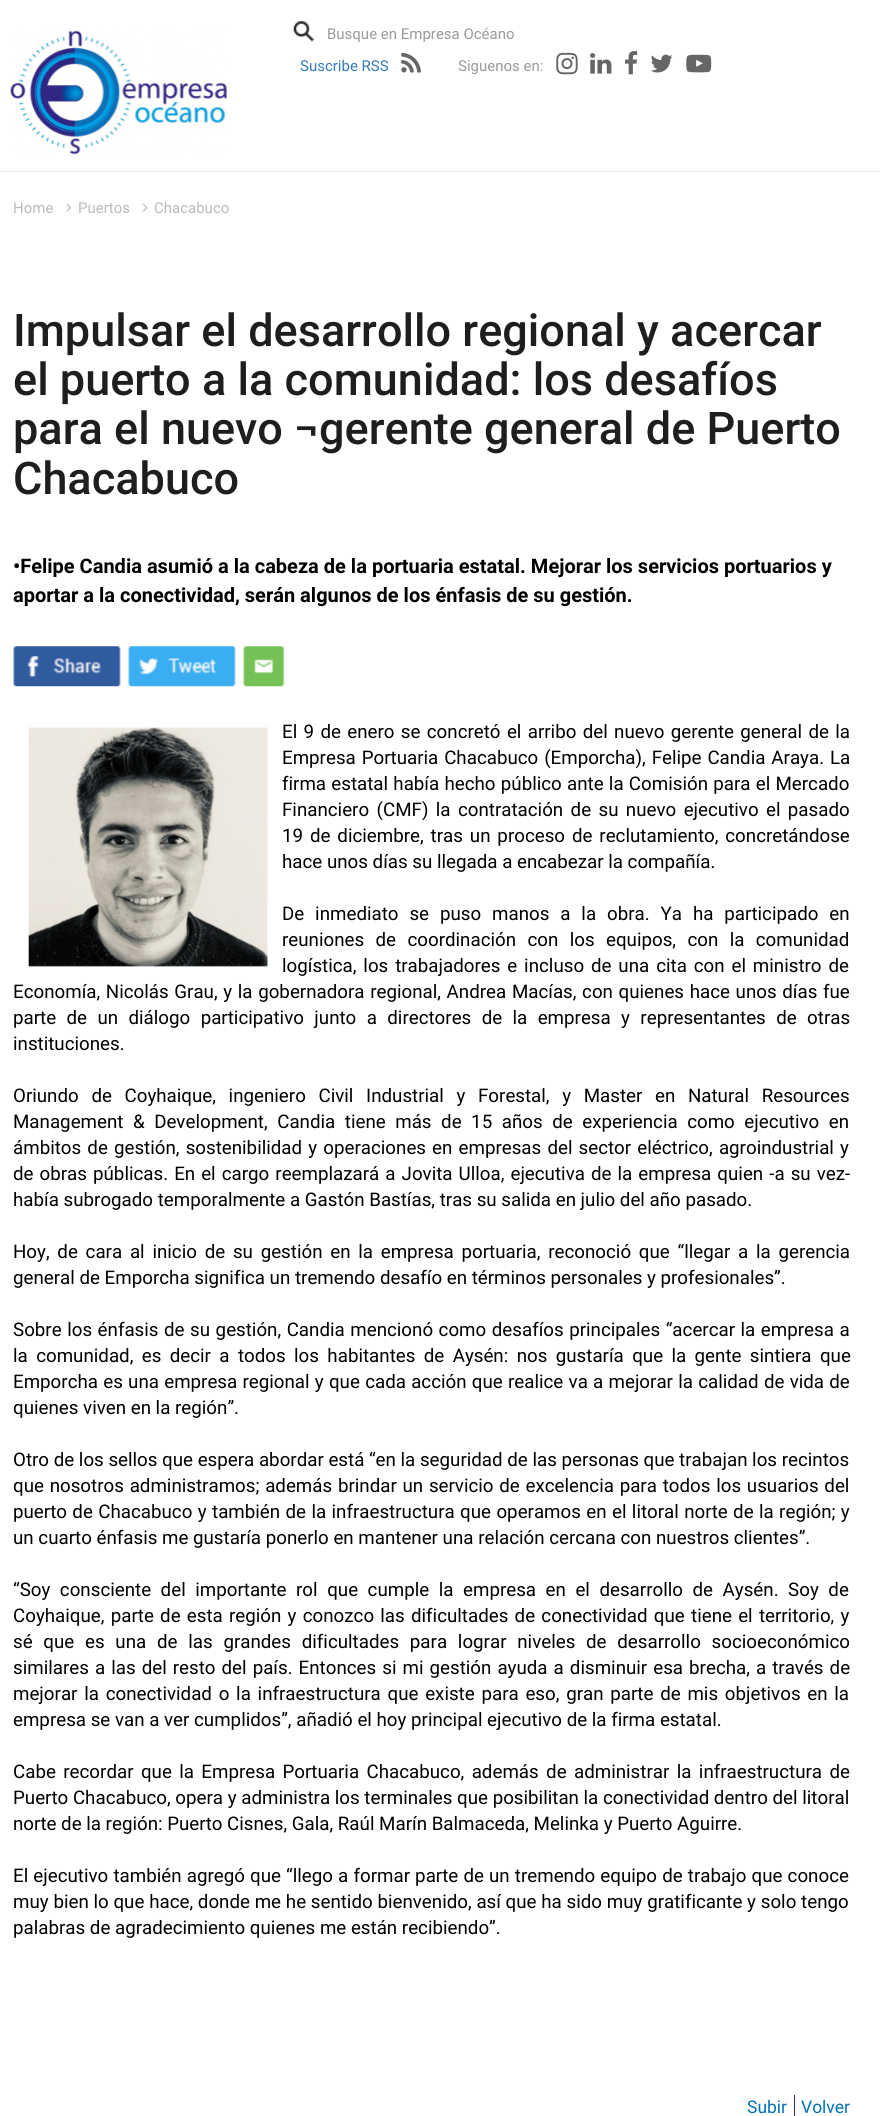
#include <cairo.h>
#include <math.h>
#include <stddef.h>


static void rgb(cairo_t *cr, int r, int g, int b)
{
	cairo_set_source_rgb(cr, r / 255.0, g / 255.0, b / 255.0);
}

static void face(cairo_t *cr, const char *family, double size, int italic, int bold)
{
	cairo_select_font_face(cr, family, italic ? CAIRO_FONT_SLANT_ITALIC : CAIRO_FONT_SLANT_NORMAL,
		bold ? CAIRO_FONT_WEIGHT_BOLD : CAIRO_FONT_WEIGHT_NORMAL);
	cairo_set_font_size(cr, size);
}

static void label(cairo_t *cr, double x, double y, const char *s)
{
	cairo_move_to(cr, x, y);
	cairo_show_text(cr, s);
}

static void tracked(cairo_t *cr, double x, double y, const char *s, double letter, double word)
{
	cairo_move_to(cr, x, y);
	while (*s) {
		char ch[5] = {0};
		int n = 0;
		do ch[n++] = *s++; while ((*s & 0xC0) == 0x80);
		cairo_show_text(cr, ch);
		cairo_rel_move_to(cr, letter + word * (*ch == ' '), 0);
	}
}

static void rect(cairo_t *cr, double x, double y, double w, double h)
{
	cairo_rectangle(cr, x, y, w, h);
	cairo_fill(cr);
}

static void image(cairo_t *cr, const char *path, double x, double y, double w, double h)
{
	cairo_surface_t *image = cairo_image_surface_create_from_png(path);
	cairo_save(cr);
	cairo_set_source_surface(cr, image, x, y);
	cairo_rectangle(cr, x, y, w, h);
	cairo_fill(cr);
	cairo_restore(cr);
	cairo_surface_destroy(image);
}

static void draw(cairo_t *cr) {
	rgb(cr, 255, 255, 255);
	cairo_paint(cr);
	image(cr, "image0.png", 10, 30, 218, 125);
	image(cr, "image1.png", 293, 21, 21, 21);
	face(cr, "Roboto", 15, 0, 0);
	rgb(cr, 153, 153, 153);
	label(cr, 327, 39, "Busque en Empresa Océano");
	rgb(cr, 51, 122, 183);
	label(cr, 300, 71, "Suscribe RSS");
	image(cr, "image2.png", 401, 52, 20, 21);
	rgb(cr, 153, 153, 153);
	label(cr, 458, 71, "Siguenos en:");
	image(cr, "image3.png", 556, 52, 22, 23);
	image(cr, "image4.png", 590, 53, 22, 21);
	image(cr, "image5.png", 625, 51, 13, 24);
	image(cr, "image6.png", 650, 54, 23, 19);
	image(cr, "image7.png", 686, 54, 26, 19);
	rgb(cr, 231, 231, 231);
	rect(cr, 0, 171, 880, 1);
	rgb(cr, 187, 187, 187);
	label(cr, 13, 213, "Home");
	image(cr, "image8.png", 66, 203, 6, 9);
	label(cr, 78, 213, "Puertos");
	image(cr, "image9.png", 142, 203, 6, 9);
	label(cr, 154, 213, "Chacabuco");
	face(cr, "Roboto Medium", 45, 0, 0);
	rgb(cr, 29, 30, 32);
	label(cr, 13, 346, "Impulsar el desarrollo regional y acercar");
	label(cr, 13, 395, "el puerto a la comunidad: los desafíos");
	label(cr, 13, 444, "para el nuevo ¬gerente general de Puerto");
	label(cr, 13, 494, "Chacabuco");
	face(cr, "Roboto", 20, 0, 1);
	rgb(cr, 0, 0, 0);
	label(cr, 13, 573, "•Felipe Candia asumió a la cabeza de la portuaria estatal. Mejorar los servicios portuarios y");
	label(cr, 13, 602, "aportar a la conectividad, serán algunos de los énfasis de su gestión.");
	image(cr, "image10.png", 13, 646, 108, 41);
	image(cr, "image11.png", 128, 646, 108, 41);
	image(cr, "image12.png", 243, 646, 42, 41);
	image(cr, "image13.png", 28, 727, 240, 240);
	face(cr, "Roboto", 18.75, 0, 0);
	tracked(cr, 282, 738, "El 9 de enero se concretó el arribo del nuevo gerente general de la", 0, 1.7);
	tracked(cr, 282, 764, "Empresa Portuaria Chacabuco (Emporcha), Felipe Candia Araya. La", 0, 1.25);
	tracked(cr, 282, 790, "firma estatal había hecho público ante la Comisión para el Mercado", 0, 0.6);
	tracked(cr, 282, 816, "Financiero (CMF) la contratación de su nuevo ejecutivo el pasado", 0, 2.75);
	tracked(cr, 282, 842, "19 de diciembre, tras un proceso de reclutamiento, concretándose", 0, 2.25);
	label(cr, 282, 868, "hace unos días su llegada a encabezar la compañía.");
	tracked(cr, 282, 920, "De inmediato se puso manos a la obra. Ya ha participado en", 0, 6.25);
	tracked(cr, 282, 946, "reuniones de coordinación con los equipos, con la comunidad", 0, 6.75);
	tracked(cr, 282, 972, "logística, los trabajadores e incluso de una cita con el ministro de", 0, 2.25);
	tracked(cr, 13, 998, "Economía, Nicolás Grau, y la gobernadora regional, Andrea Macías, con quienes hace unos días fue", 0, 1);
	tracked(cr, 13, 1024, "parte de un diálogo participativo junto a directores de la empresa y representantes de otras", 0, 5.75);
	label(cr, 13, 1050, "instituciones.");
	tracked(cr, 13, 1102, "Oriundo de Coyhaique, ingeniero Civil Industrial y Forestal, y Master en Natural Resources", 0, 8);
	tracked(cr, 13, 1128, "Management & Development, Candia tiene más de 15 años de experiencia como ejecutivo en", 0, 4.9);
	tracked(cr, 13, 1154, "ámbitos de gestión, sostenibilidad y operaciones en empresas del sector eléctrico, agroindustrial y", 0, 1.5);
	tracked(cr, 13, 1180, "de obras públicas. En el cargo reemplazará a Jovita Ulloa, ejecutiva de la empresa quien -a su vez-", 0, 1.4);
	label(cr, 13, 1206, "había subrogado temporalmente a Gastón Bastías, tras su salida en julio del año pasado.");
	tracked(cr, 13, 1258, "Hoy, de cara al inicio de su gestión en la empresa portuaria, reconoció que “llegar a la gerencia", 0, 3.1);
	label(cr, 13, 1284, "general de Emporcha significa un tremendo desafío en términos personales y profesionales”.");
	tracked(cr, 13, 1336, "Sobre los énfasis de su gestión, Candia mencionó como desafíos principales “acercar la empresa a", 0, 0.9);
	tracked(cr, 13, 1362, "la comunidad, es decir a todos los habitantes de Aysén: nos gustaría que la gente sintiera que", 0, 3.75);
	tracked(cr, 13, 1388, "Emporcha es una empresa regional y que cada acción que realice va a mejorar la calidad de vida de", 0, 0.6);
	label(cr, 13, 1414, "quienes viven en la región”.");
	label(cr, 13, 1466, "Otro de los sellos que espera abordar está “en la seguridad de las personas que trabajan los recintos");
	tracked(cr, 13, 1492, "que nosotros administramos; además brindar un servicio de excelencia para todos los usuarios del", 0, 1.1);
	tracked(cr, 13, 1518, "puerto de Chacabuco y también de la infraestructura que operamos en el litoral norte de la región; y", 0, 0.75);
	label(cr, 13, 1544, "un cuarto énfasis me gustaría ponerlo en mantener una relación cercana con nuestros clientes”.");
	tracked(cr, 13, 1596, "“Soy consciente del importante rol que cumple la empresa en el desarrollo de Aysén. Soy de", 0, 4.9);
	tracked(cr, 13, 1622, "Coyhaique, parte de esta región y conozco las dificultades de conectividad que tiene el territorio, y", 0, 1.6);
	tracked(cr, 13, 1648, "sé que es una de las grandes dificultades para lograr niveles de desarrollo socioeconómico", 0, 6.1);
	tracked(cr, 13, 1674, "similares a las del resto del país. Entonces si mi gestión ayuda a disminuir esa brecha, a través de", 0, 1.4);
	tracked(cr, 13, 1700, "mejorar la conectividad o la infraestructura que existe para eso, gran parte de mis objetivos en la", 0, 2.1);
	label(cr, 13, 1726, "empresa se van a ver cumplidos”, añadió el hoy principal ejecutivo de la firma estatal.");
	tracked(cr, 13, 1778, "Cabe recordar que la Empresa Portuaria Chacabuco, además de administrar la infraestructura de", 0, 2.75);
	label(cr, 13, 1804, "Puerto Chacabuco, opera y administra los terminales que posibilitan la conectividad dentro del litoral");
	label(cr, 13, 1830, "norte de la región: Puerto Cisnes, Gala, Raúl Marín Balmaceda, Melinka y Puerto Aguirre.");
	tracked(cr, 13, 1882, "El ejecutivo también agregó que “llego a formar parte de un tremendo equipo de trabajo que conoce", 0, 0.5);
	tracked(cr, 13, 1908, "muy bien lo que hace, donde me he sentido bienvenido, así que ha sido muy gratificante y solo tengo", 0, 0.1);
	label(cr, 13, 1934, "palabras de agradecimiento quienes me están recibiendo”.");
	face(cr, "Roboto", 17.5, 0, 0);
	rgb(cr, 0, 113, 185);
	label(cr, 747, 2113, "Subir");
	rgb(cr, 51, 39, 131);
	rect(cr, 794, 2095, 1, 21);
	rgb(cr, 0, 113, 185);
	label(cr, 801, 2113, "Volver");
}

int main(void) {
	cairo_surface_t *surface = cairo_image_surface_create(CAIRO_FORMAT_RGB24, 880, 2116);
	cairo_t *cr = cairo_create(surface);
	cairo_font_options_t *options = cairo_font_options_create();
	cairo_font_options_set_hint_metrics(options, CAIRO_HINT_METRICS_OFF);
	cairo_font_options_set_hint_style(options, CAIRO_HINT_STYLE_NONE);
	cairo_set_font_options(cr, options);
	cairo_set_miter_limit(cr, 4);
	draw(cr);
	cairo_surface_write_to_png(surface, "render.png");
	cairo_font_options_destroy(options);
	cairo_destroy(cr);
	cairo_surface_destroy(surface);
	return 0;
}
